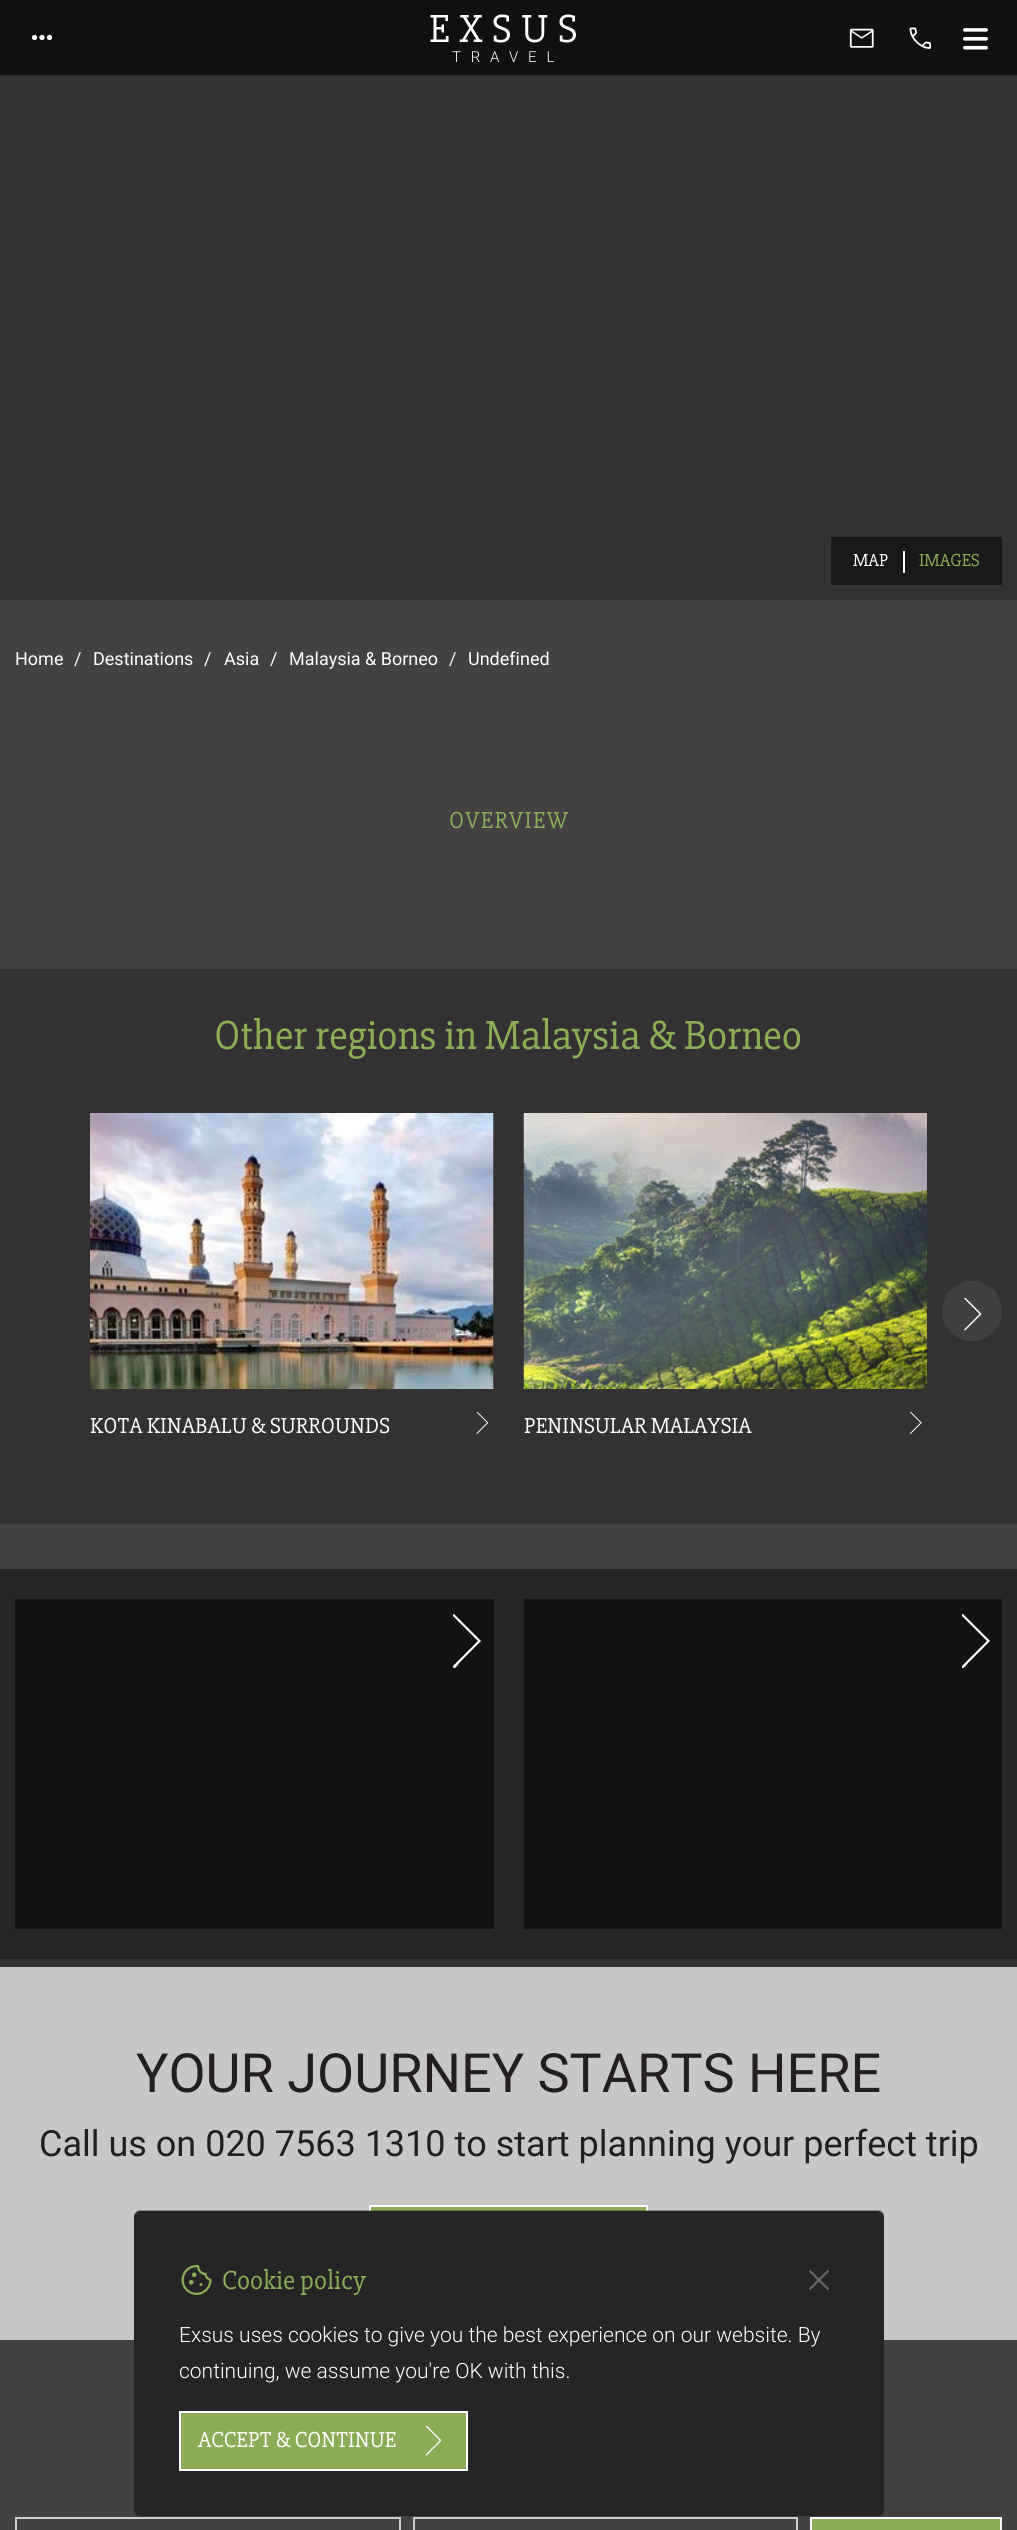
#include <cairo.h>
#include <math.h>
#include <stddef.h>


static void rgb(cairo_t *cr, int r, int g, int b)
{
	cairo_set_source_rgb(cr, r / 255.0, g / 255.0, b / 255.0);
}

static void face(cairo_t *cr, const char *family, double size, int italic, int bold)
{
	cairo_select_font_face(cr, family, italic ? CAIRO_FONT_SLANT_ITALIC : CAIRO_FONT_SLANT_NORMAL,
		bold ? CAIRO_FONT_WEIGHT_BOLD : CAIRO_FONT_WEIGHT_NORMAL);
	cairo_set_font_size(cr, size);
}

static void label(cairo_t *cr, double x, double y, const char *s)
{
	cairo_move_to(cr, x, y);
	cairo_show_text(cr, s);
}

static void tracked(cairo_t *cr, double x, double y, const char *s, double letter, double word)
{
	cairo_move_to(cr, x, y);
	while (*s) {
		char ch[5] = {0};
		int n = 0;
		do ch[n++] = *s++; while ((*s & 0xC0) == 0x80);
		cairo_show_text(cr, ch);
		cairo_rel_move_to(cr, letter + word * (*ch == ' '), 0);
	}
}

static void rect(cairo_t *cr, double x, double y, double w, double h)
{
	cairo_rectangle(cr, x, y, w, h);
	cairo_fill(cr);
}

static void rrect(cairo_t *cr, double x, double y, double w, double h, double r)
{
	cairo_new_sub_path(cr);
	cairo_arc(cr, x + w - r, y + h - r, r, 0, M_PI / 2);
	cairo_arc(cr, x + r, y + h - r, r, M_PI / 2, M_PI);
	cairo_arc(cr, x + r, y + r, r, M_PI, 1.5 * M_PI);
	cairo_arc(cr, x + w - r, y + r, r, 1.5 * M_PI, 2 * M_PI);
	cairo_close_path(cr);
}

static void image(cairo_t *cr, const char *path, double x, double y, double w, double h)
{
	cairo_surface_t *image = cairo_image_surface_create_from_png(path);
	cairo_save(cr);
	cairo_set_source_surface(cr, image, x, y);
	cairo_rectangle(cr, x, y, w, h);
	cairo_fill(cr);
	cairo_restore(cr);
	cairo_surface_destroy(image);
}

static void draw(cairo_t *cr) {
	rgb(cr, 51, 49, 50);
	cairo_paint(cr);
	rgb(cr, 16, 16, 16);
	rect(cr, 0, 0, 1017, 75);
	image(cr, "image0.png", 31, 34, 22, 7);
	face(cr, "Slabo 27px", 40.5, 0, 0);
	rgb(cr, 255, 255, 255);
	tracked(cr, 429, 42, "EXSUS", 9.75, 0);
	face(cr, "Roboto Light", 15, 0, 0);
	tracked(cr, 452, 62, "TRAVEL", 9.75, 0);
	image(cr, "image1.png", 849, 28, 25, 20);
	image(cr, "image2.png", 909, 27, 22, 22);
	image(cr, "image3.png", 963, 28, 25, 22);
	rgb(cr, 26, 25, 25);
	rect(cr, 831, 537, 171, 48);
	face(cr, "Slabo 27px", 18, 0, 0);
	rgb(cr, 255, 255, 255);
	label(cr, 853, 566, "MAP");
	rect(cr, 903, 551, 2, 22);
	rgb(cr, 138, 173, 86);
	label(cr, 919, 566, "IMAGES");
	rgb(cr, 67, 65, 66);
	rect(cr, 0, 600, 1017, 969);
	face(cr, "Roboto", 18, 0, 0);
	rgb(cr, 255, 255, 255);
	label(cr, 15, 665, "Home");
	label(cr, 74, 665, "/");
	label(cr, 93, 665, "Destinations");
	label(cr, 204, 665, "/");
	label(cr, 224, 665, "Asia");
	label(cr, 270, 665, "/");
	label(cr, 289, 665, "Malaysia & Borneo");
	label(cr, 449, 665, "/");
	label(cr, 468, 665, "Undefined");
	face(cr, "Slabo 27px", 24, 0, 0);
	rgb(cr, 138, 173, 86);
	tracked(cr, 449, 828, "OVERVIEW", 1.25, 0);
	rgb(cr, 51, 49, 50);
	rect(cr, 0, 969, 1017, 555);
	face(cr, "Slabo 27px", 42, 0, 0);
	rgb(cr, 138, 173, 86);
	label(cr, 214, 1049, "Other regions in Malaysia & Borneo");
	rgb(cr, 65, 63, 63);
	cairo_new_path(cr);
	cairo_arc(cr, 972, 1311, 30, 0, 2 * M_PI);
	cairo_fill(cr);
	image(cr, "image4.png", 964, 1298, 18, 33);
	image(cr, "image5.png", 90, 1113, 404, 276);
	face(cr, "Slabo 27px", 22.5, 0, 0);
	rgb(cr, 255, 255, 255);
	label(cr, 90, 1433, "KOTA KINABALU & SURROUNDS");
	image(cr, "image6.png", 476, 1412, 13, 22);
	image(cr, "image7.png", 523, 1113, 404, 276);
	label(cr, 524, 1433, "PENINSULAR MALAYSIA");
	image(cr, "image8.png", 909, 1412, 13, 22);
	rgb(cr, 37, 37, 37);
	rect(cr, 0, 1569, 1017, 390);
	rgb(cr, 19, 19, 19);
	rect(cr, 15, 1599, 479, 330);
	rgb(cr, 255, 255, 255);
	cairo_new_path(cr);
	cairo_move_to(cr, 453, 1616);
	cairo_curve_to(cr, 453, 1615, 453, 1614, 454, 1614);
	cairo_line_to(cr, 481, 1641);
	cairo_line_to(cr, 459, 1663);
	cairo_curve_to(cr, 459, 1664, 455, 1669, 454, 1668);
	cairo_curve_to(cr, 453, 1668, 453, 1667, 453, 1666);
	cairo_line_to(cr, 478, 1641);
	cairo_close_path(cr);
	cairo_fill(cr);
	rgb(cr, 19, 19, 19);
	rect(cr, 524, 1599, 478, 330);
	cairo_save(cr);
	cairo_rectangle(cr, 962, 1614, 28, 54);
	cairo_clip(cr);
	rgb(cr, 255, 255, 255);
	cairo_new_path(cr);
	cairo_move_to(cr, 962, 1616);
	cairo_curve_to(cr, 961, 1615, 962, 1614, 963, 1614);
	cairo_line_to(cr, 990, 1641);
	cairo_line_to(cr, 968, 1663);
	cairo_curve_to(cr, 967, 1664, 964, 1669, 962, 1668);
	cairo_curve_to(cr, 962, 1668, 961, 1667, 962, 1666);
	cairo_line_to(cr, 987, 1641);
	cairo_close_path(cr);
	cairo_fill(cr);
	cairo_restore(cr);
	rgb(cr, 200, 199, 200);
	rect(cr, 0, 1967, 1017, 373);
	face(cr, "Roboto", 54, 0, 0);
	rgb(cr, 35, 31, 32);
	label(cr, 136, 2092, "YOUR JOURNEY STARTS HERE");
	face(cr, "Roboto", 36, 0, 0);
	label(cr, 39, 2156, "Call us on 020 7563 1310 to start planning your perfect trip");
	rgb(cr, 138, 173, 86);
	rect(cr, 371, 2207, 275, 4);
	cairo_rectangle(cr, 370, 2206, 277, 58);
	rgb(cr, 255, 255, 255);
	cairo_stroke(cr);
	rgb(cr, 67, 65, 66);
	rect(cr, 0, 2340, 1017, 190);
	cairo_rectangle(cr, 16, 2518, 384, 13);
	rgb(cr, 205, 204, 205);
	cairo_stroke(cr);
	cairo_rectangle(cr, 414, 2518, 383, 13);
	cairo_stroke(cr);
	rgb(cr, 138, 173, 86);
	cairo_rectangle(cr, 811, 2518, 190, 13);
	cairo_fill_preserve(cr);
	rgb(cr, 255, 255, 255);
	cairo_stroke(cr);
	cairo_set_source_rgba(cr, 0, 0, 0, 0.3);
	cairo_new_path(cr);
	cairo_move_to(cr, 140, 2210);
	cairo_curve_to(cr, 137, 2210, 135, 2212, 134, 2214);
	cairo_curve_to(cr, 135, 2212, 137, 2211, 140, 2211);
	cairo_line_to(cr, 878, 2211);
	cairo_curve_to(cr, 881, 2211, 884, 2214, 884, 2217);
	cairo_line_to(cr, 883, 2511);
	cairo_line_to(cr, 884, 2508);
	cairo_line_to(cr, 884, 2216);
	cairo_curve_to(cr, 884, 2213, 881, 2210, 878, 2210);
	cairo_close_path(cr);
	cairo_fill(cr);
	rgb(cr, 37, 37, 37);
	rrect(cr, 134, 2211, 750, 305, 6);
	cairo_fill(cr);
	image(cr, "image9.png", 181, 2264, 31, 31);
	face(cr, "Slabo 27px", 27, 0, 0);
	rgb(cr, 138, 173, 86);
	label(cr, 222, 2289, "Cookie policy");
	image(cr, "image10.png", 809, 2270, 20, 20);
	face(cr, "Roboto Light", 21, 0, 0);
	rgb(cr, 255, 255, 255);
	label(cr, 179, 2342, "Exsus uses cookies to give you the best experience on our website. By");
	label(cr, 179, 2378, "continuing, we assume you're OK with this.");
	rgb(cr, 138, 173, 86);
	cairo_rectangle(cr, 180, 2412, 287, 58);
	cairo_fill_preserve(cr);
	rgb(cr, 255, 255, 255);
	cairo_stroke(cr);
	face(cr, "Slabo 27px", 22.5, 0, 0);
	label(cr, 198, 2447, "ACCEPT & CONTINUE");
	image(cr, "image11.png", 425, 2426, 17, 30);
}

int main(void) {
	cairo_surface_t *surface = cairo_image_surface_create(CAIRO_FORMAT_RGB24, 1017, 2530);
	cairo_t *cr = cairo_create(surface);
	cairo_font_options_t *options = cairo_font_options_create();
	cairo_font_options_set_hint_metrics(options, CAIRO_HINT_METRICS_OFF);
	cairo_font_options_set_hint_style(options, CAIRO_HINT_STYLE_NONE);
	cairo_set_font_options(cr, options);
	cairo_set_miter_limit(cr, 4);
	draw(cr);
	cairo_surface_write_to_png(surface, "render.png");
	cairo_font_options_destroy(options);
	cairo_destroy(cr);
	cairo_surface_destroy(surface);
	return 0;
}
